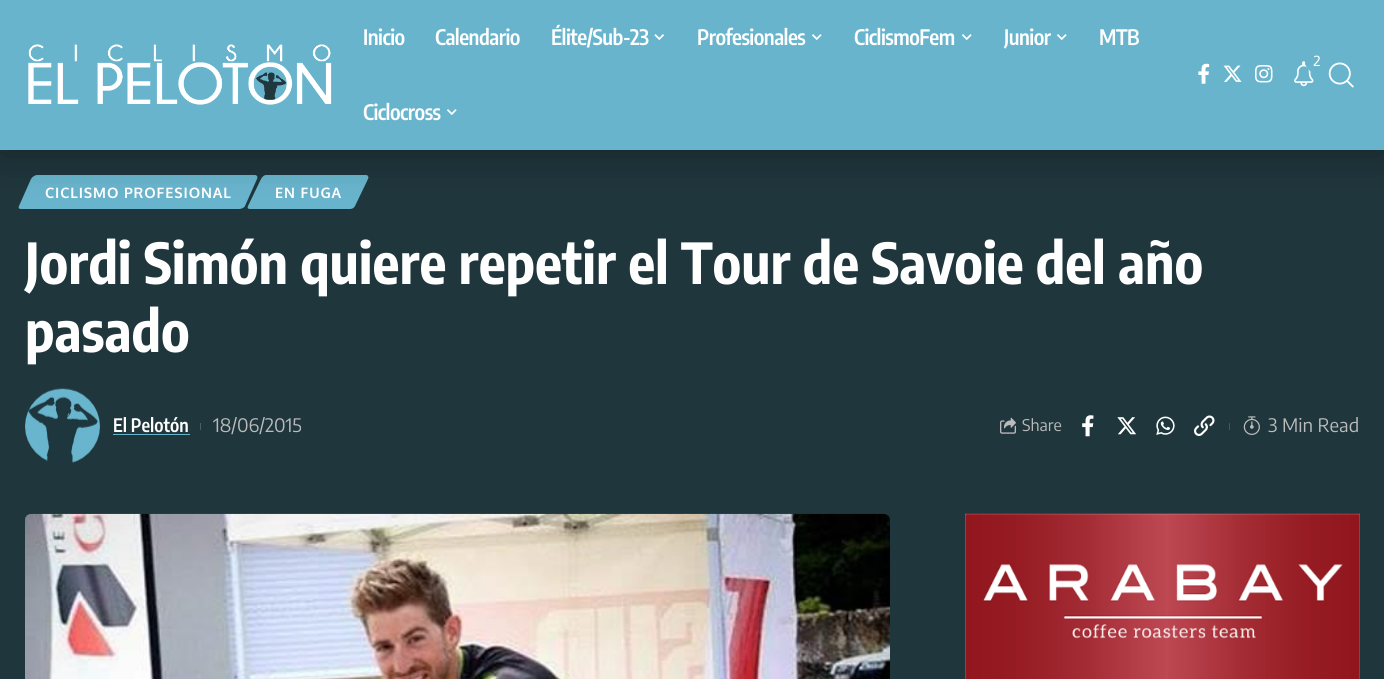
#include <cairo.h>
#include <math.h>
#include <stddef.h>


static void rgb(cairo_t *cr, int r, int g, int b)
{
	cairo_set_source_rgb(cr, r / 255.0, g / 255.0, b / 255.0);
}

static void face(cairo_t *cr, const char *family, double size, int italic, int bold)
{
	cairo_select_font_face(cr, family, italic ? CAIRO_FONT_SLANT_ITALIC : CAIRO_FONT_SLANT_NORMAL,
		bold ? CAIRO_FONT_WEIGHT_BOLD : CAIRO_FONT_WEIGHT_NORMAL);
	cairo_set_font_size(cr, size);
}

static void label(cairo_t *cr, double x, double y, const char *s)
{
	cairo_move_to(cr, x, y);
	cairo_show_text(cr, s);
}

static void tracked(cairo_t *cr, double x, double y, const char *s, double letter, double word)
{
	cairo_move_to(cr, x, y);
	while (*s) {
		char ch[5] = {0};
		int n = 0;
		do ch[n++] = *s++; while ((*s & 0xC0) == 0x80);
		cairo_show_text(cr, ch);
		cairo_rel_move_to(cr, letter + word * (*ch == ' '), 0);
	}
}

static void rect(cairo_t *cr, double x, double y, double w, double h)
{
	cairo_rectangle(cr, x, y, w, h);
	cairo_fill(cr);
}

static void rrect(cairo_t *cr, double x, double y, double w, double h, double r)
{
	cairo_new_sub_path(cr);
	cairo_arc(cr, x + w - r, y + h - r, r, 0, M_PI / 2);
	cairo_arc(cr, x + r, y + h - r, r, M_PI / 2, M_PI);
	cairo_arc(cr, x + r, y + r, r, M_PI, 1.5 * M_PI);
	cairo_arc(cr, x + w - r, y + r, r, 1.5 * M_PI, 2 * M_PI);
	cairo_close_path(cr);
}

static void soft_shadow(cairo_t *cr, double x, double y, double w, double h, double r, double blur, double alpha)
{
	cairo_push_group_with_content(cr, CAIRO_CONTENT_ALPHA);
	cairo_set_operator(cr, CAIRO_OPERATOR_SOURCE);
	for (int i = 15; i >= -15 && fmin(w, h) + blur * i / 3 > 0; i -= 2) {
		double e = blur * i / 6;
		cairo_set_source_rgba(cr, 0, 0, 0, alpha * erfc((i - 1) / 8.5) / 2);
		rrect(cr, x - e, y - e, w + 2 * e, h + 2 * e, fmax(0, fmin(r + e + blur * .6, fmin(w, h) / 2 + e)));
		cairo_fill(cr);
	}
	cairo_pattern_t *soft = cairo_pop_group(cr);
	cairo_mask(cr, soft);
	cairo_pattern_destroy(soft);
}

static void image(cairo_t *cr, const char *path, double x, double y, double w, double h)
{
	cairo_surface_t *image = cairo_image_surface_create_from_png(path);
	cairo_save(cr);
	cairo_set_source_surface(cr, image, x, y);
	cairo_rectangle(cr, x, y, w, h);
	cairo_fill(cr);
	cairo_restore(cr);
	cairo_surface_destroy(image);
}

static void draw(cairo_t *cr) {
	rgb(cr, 31, 54, 60);
	cairo_paint(cr);
	rgb(cr, 104, 180, 204);
	cairo_new_path(cr);
	cairo_move_to(cr, 37, 175);
	cairo_line_to(cr, 255, 175);
	cairo_curve_to(cr, 257, 175, 258, 177, 257, 179);
	cairo_line_to(cr, 245, 206);
	cairo_curve_to(cr, 244, 208, 241, 209, 239, 209);
	cairo_line_to(cr, 21, 209);
	cairo_curve_to(cr, 19, 209, 18, 208, 19, 206);
	cairo_line_to(cr, 31, 179);
	cairo_curve_to(cr, 32, 177, 35, 175, 37, 175);
	cairo_close_path(cr);
	cairo_fill(cr);
	cairo_new_path(cr);
	cairo_move_to(cr, 266, 175);
	cairo_line_to(cr, 366, 175);
	cairo_curve_to(cr, 368, 175, 369, 177, 368, 179);
	cairo_line_to(cr, 355, 206);
	cairo_curve_to(cr, 354, 208, 352, 209, 350, 209);
	cairo_line_to(cr, 250, 209);
	cairo_curve_to(cr, 248, 209, 247, 208, 248, 206);
	cairo_line_to(cr, 261, 179);
	cairo_curve_to(cr, 262, 177, 264, 175, 266, 175);
	cairo_close_path(cr);
	cairo_fill(cr);
	rgb(cr, 0, 0, 0);
	soft_shadow(cr, 0, 5, 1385, 150, 0, 19, 0.3);
	rgb(cr, 104, 180, 204);
	rect(cr, 0, 0, 1384, 150);
	image(cr, "image0.png", 28, 44, 304, 61);
	face(cr, "Encode Sans Condensed SemiBold", 21.25, 0, 0);
	rgb(cr, 255, 255, 255);
	tracked(cr, 363, 45, "Inicio", -0.5, 0);
	tracked(cr, 435, 45, "Calendario", -0.5, 0);
	tracked(cr, 551, 45, "Élite/Sub-23", -0.5, 0);
	image(cr, "image1.png", 654, 34, 11, 7);
	tracked(cr, 697, 45, "Profesionales", -0.5, 0);
	image(cr, "image2.png", 811, 34, 11, 7);
	tracked(cr, 854, 45, "CiclismoFem", -0.5, 0);
	image(cr, "image2.png", 961, 34, 11, 7);
	tracked(cr, 1004, 45, "Junior", -0.5, 0);
	image(cr, "image2.png", 1056, 34, 11, 7);
	tracked(cr, 1099, 45, "MTB", -0.5, 0);
	tracked(cr, 363, 120, "Ciclocross", -0.5, 0);
	image(cr, "image2.png", 446, 109, 11, 7);
	image(cr, "image3.png", 1294, 61, 20, 26);
	rgb(cr, 104, 180, 204);
	cairo_arc(cr, 1316.5, 61.5, 11.5, 0, 2 * M_PI);
	cairo_fill(cr);
	face(cr, "Oxygen", 14, 0, 0);
	rgb(cr, 255, 255, 255);
	label(cr, 1313, 66, "2");
	image(cr, "image4.png", 1198, 63, 12, 21);
	image(cr, "image5.png", 1223, 65, 19, 17);
	image(cr, "image6.png", 1255, 65, 18, 18);
	image(cr, "image7.png", 1328, 62, 26, 26);
	face(cr, "Oxygen", 14.4, 0, 1);
	tracked(cr, 45, 198, "CICLISMO PROFESIONAL", 0.9, 0);
	tracked(cr, 275, 198, "EN FUGA", 0.9, 0);
	face(cr, "Encode Sans Condensed", 56.25, 0, 1);
	label(cr, 25, 284, "Jordi Simón quiere repetir el Tour de Savoie del año");
	label(cr, 25, 352, "pasado");
	image(cr, "image8.png", 25, 388, 75, 75);
	face(cr, "Encode Sans Condensed SemiBold", 18.5, 0, 0);
	label(cr, 113, 432, "El Pelotón");
	rgb(cr, 104, 180, 204);
	rect(cr, 113, 434, 77, 1);
	rgb(cr, 78, 94, 98);
	rect(cr, 200, 423, 1, 7);
	face(cr, "Encode Sans", 18.5, 0, 0);
	rgb(cr, 187, 187, 187);
	label(cr, 213, 432, "18/06/2015");
	image(cr, "image9.png", 1000, 417, 16, 17);
	face(cr, "Encode Sans", 16, 0, 0);
	label(cr, 1022, 431, "Share");
	image(cr, "image10.png", 1082, 415, 12, 22);
	image(cr, "image11.png", 1117, 417, 20, 18);
	image(cr, "image12.png", 1156, 416, 19, 19);
	image(cr, "image13.png", 1194, 415, 21, 21);
	rgb(cr, 70, 87, 92);
	rect(cr, 1229, 423, 1, 7);
	image(cr, "image14.png", 1243, 416, 17, 19);
	face(cr, "Encode Sans", 18.5, 0, 0);
	rgb(cr, 187, 187, 187);
	label(cr, 1268, 432, "3 Min Read");
	image(cr, "image15.png", 25, 513, 865, 166);
	image(cr, "image16.png", 965, 513, 395, 166);
}

int main(void) {
	cairo_surface_t *surface = cairo_image_surface_create(CAIRO_FORMAT_RGB24, 1384, 679);
	cairo_t *cr = cairo_create(surface);
	cairo_font_options_t *options = cairo_font_options_create();
	cairo_font_options_set_hint_metrics(options, CAIRO_HINT_METRICS_OFF);
	cairo_font_options_set_hint_style(options, CAIRO_HINT_STYLE_NONE);
	cairo_set_font_options(cr, options);
	cairo_set_miter_limit(cr, 4);
	draw(cr);
	cairo_surface_write_to_png(surface, "render.png");
	cairo_font_options_destroy(options);
	cairo_destroy(cr);
	cairo_surface_destroy(surface);
	return 0;
}
